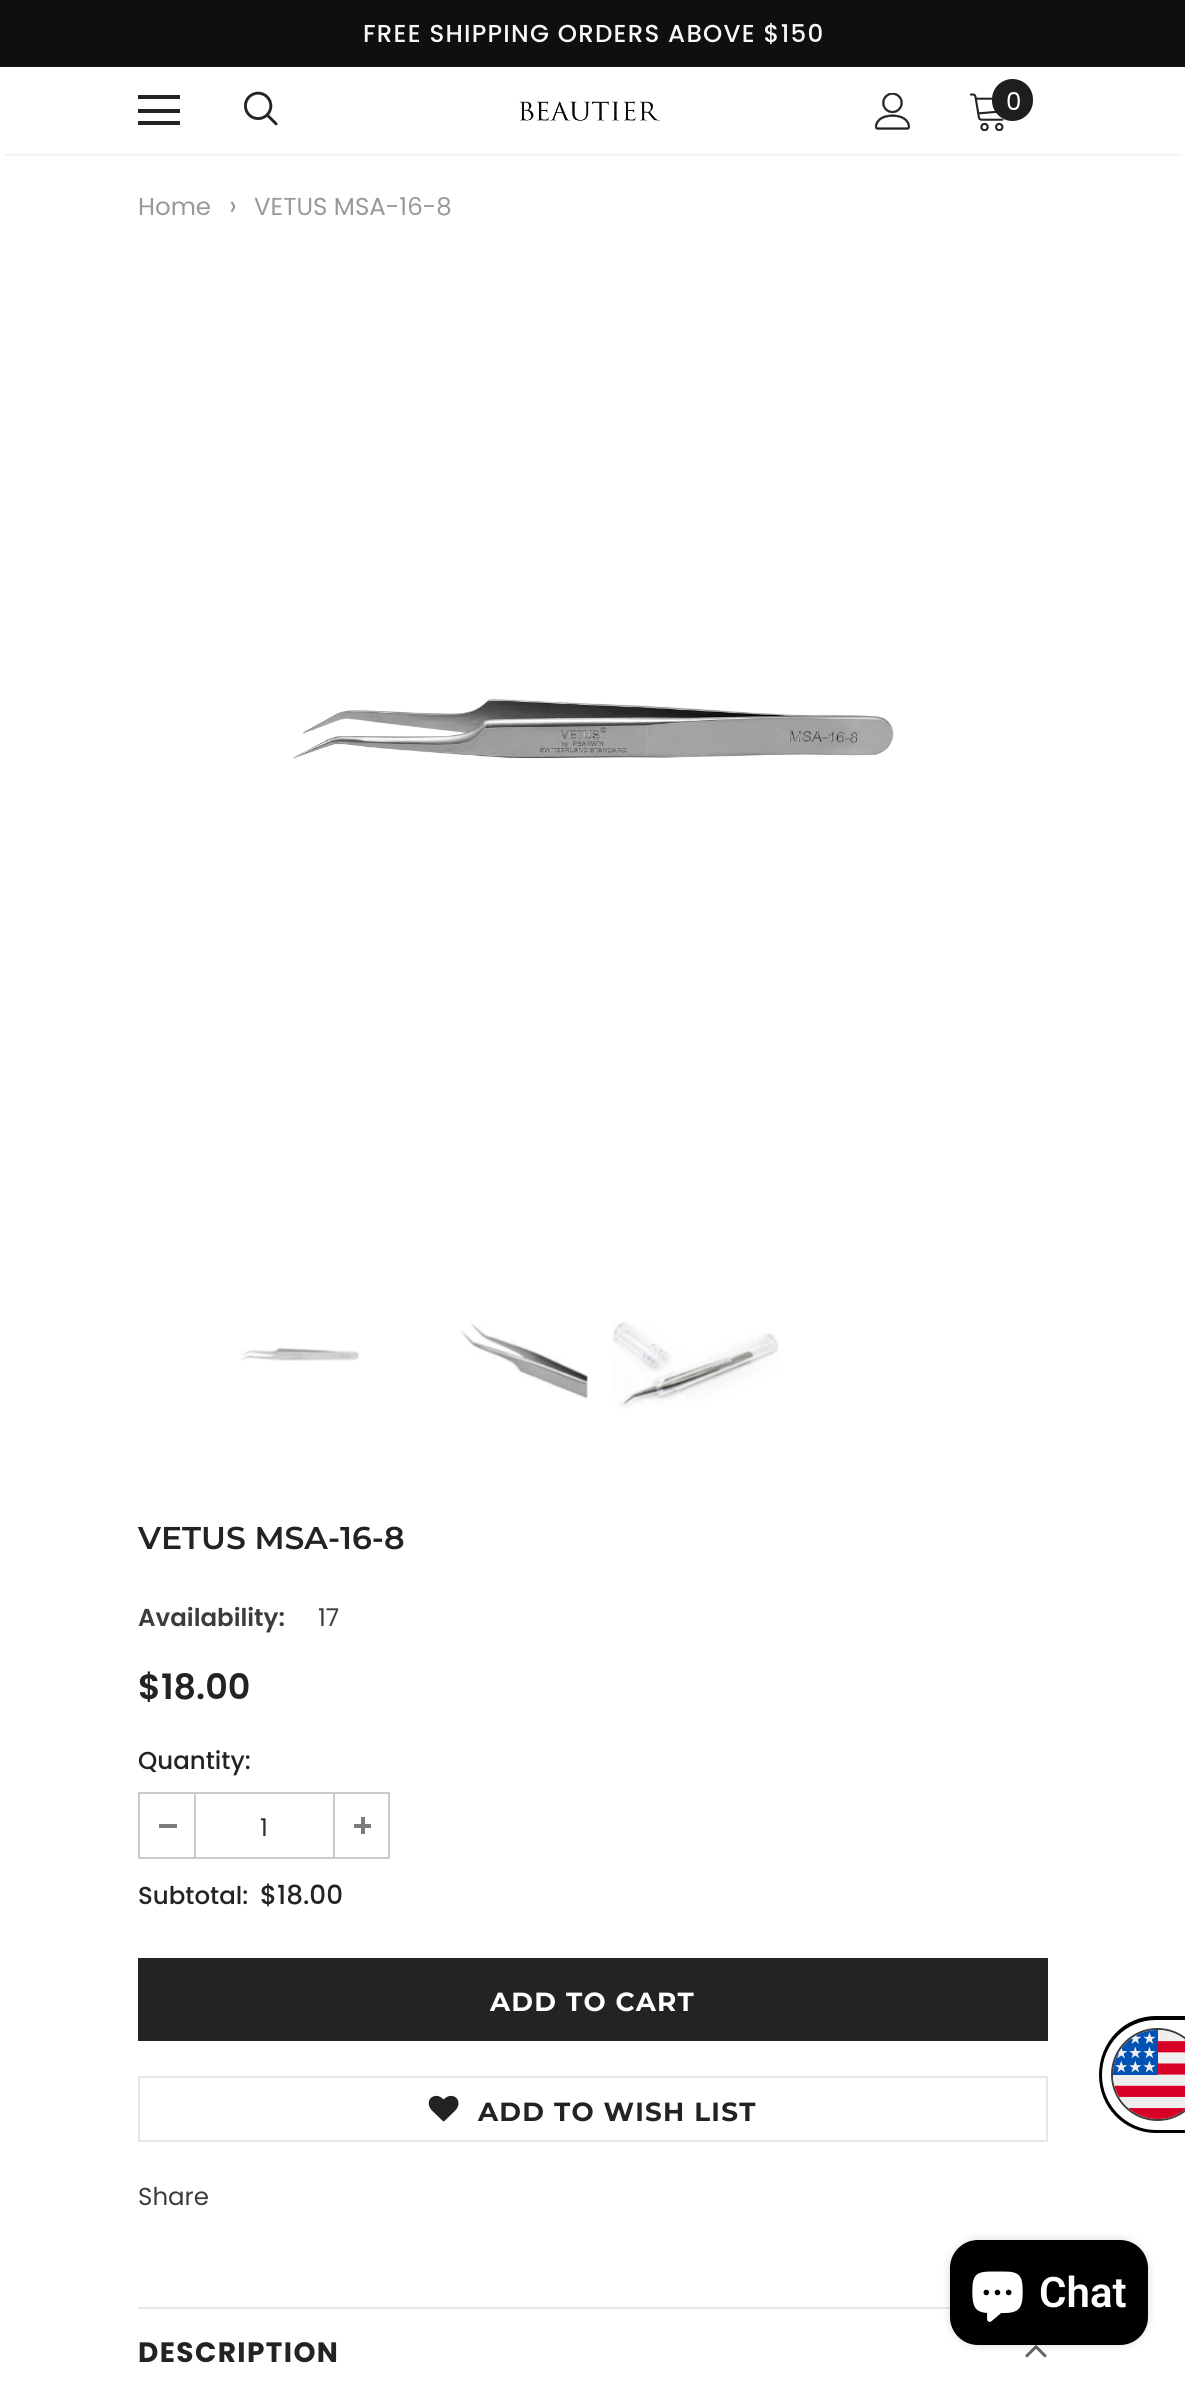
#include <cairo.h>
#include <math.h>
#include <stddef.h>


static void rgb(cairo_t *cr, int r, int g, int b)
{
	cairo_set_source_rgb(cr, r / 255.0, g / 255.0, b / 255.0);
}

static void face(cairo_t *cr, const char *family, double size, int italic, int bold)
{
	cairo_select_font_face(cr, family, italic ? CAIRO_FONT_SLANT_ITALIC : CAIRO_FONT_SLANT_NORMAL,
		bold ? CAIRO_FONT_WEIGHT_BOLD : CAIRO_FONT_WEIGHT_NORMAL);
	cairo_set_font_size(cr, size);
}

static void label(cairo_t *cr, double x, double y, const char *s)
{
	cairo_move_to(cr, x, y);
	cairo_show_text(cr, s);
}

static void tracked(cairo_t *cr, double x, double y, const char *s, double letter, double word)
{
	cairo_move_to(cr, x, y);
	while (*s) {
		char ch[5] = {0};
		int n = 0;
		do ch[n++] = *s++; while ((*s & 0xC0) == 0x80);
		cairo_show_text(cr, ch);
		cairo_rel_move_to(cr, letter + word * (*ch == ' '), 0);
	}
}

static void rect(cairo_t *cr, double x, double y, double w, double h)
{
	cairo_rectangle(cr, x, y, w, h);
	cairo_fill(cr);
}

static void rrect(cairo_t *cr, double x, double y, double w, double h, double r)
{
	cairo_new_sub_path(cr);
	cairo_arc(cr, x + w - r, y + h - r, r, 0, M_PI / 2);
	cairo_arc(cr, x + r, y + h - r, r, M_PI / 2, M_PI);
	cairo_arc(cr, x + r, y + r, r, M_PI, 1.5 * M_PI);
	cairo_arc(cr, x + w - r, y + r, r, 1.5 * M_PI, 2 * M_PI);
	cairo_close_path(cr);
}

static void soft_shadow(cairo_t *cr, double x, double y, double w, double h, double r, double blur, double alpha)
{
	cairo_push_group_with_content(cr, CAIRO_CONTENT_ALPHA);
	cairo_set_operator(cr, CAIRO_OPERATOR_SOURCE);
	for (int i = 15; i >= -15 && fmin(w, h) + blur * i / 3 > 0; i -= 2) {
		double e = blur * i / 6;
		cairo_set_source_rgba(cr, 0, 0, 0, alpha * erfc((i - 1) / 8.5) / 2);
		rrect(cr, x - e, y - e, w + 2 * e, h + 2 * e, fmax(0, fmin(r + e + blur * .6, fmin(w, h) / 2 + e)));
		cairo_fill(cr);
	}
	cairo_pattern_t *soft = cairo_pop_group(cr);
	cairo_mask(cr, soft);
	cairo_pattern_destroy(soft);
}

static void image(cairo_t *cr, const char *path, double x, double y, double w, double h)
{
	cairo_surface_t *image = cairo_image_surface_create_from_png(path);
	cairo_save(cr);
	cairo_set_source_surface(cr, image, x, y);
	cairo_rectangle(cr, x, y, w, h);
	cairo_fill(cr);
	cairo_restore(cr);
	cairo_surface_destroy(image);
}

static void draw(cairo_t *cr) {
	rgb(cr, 255, 255, 255);
	cairo_paint(cr);
	rgb(cr, 15, 15, 15);
	rect(cr, 0, 0, 1185, 67);
	face(cr, "Poppins Medium", 24.5, 0, 0);
	rgb(cr, 248, 248, 248);
	tracked(cr, 363, 42, "FREE SHIPPING ORDERS ABOVE $150", 1.25, 0);
	cairo_save(cr);
	cairo_rectangle(cr, 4, 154, 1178, 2);
	cairo_clip(cr);
	rgb(cr, 0, 0, 0);
	soft_shadow(cr, 5, 77, 1176, 77, 0, 2.5, 0.12);
	cairo_restore(cr);
	rgb(cr, 35, 35, 35);
	rect(cr, 138, 95, 42, 4);
	rect(cr, 138, 109, 42, 4);
	rect(cr, 138, 121, 42, 4);
	image(cr, "image0.png", 244, 91, 34, 35);
	image(cr, "image1.png", 519, 101, 141, 20);
	image(cr, "image2.png", 875, 93, 36, 37);
	image(cr, "image3.png", 969, 93, 35, 38);
	rgb(cr, 30, 30, 30);
	rrect(cr, 992, 79, 41, 42, 20.5);
	cairo_fill(cr);
	face(cr, "Poppins", 24.5, 0, 0);
	rgb(cr, 255, 255, 255);
	label(cr, 1006, 110, "0");
	rgb(cr, 153, 153, 153);
	label(cr, 138, 215, "Home");
	face(cr, "Poppins", 28, 0, 0);
	label(cr, 229, 215, "›");
	face(cr, "Poppins", 24.5, 0, 0);
	label(cr, 254, 215, "VETUS MSA-16-8");
	image(cr, "image4.png", 293, 699, 601, 60);
	image(cr, "image5.png", 240, 1347, 120, 14);
	image(cr, "image6.png", 460, 1323, 128, 76);
	image(cr, "image7.png", 612, 1322, 167, 87);
	face(cr, "Montserrat SemiBold", 31.5, 0, 0);
	rgb(cr, 35, 35, 35);
	label(cr, 138, 1549, "VETUS MSA-16-8");
	face(cr, "Poppins SemiBold", 24.5, 0, 0);
	rgb(cr, 60, 60, 60);
	label(cr, 138, 1626, "Availability:");
	face(cr, "Poppins", 24.5, 0, 0);
	label(cr, 318, 1626, "17");
	face(cr, "Poppins SemiBold", 35, 0, 0);
	rgb(cr, 35, 35, 35);
	label(cr, 138, 1699, "$18.00");
	face(cr, "Poppins Medium", 24.5, 0, 0);
	label(cr, 138, 1769, "Quantity:");
	cairo_rectangle(cr, 139, 1793, 250, 65);
	rgb(cr, 203, 203, 203);
	cairo_stroke(cr);
	rect(cr, 194, 1794, 2, 63);
	rgb(cr, 123, 123, 123);
	rect(cr, 159, 1824, 18, 4);
	face(cr, "Poppins", 24.5, 0, 0);
	rgb(cr, 45, 45, 45);
	label(cr, 260, 1836, "1");
	rgb(cr, 203, 203, 203);
	rect(cr, 333, 1794, 2, 63);
	rgb(cr, 123, 123, 123);
	rect(cr, 354, 1824, 17, 4);
	rect(cr, 361, 1817, 4, 17);
	face(cr, "Poppins Medium", 24.5, 0, 0);
	rgb(cr, 35, 35, 35);
	label(cr, 138, 1904, "Subtotal:");
	face(cr, "Poppins Medium", 26.25, 0, 0);
	label(cr, 260, 1904, "$18.00");
	rect(cr, 138, 1958, 910, 83);
	face(cr, "Montserrat", 26.25, 0, 1);
	rgb(cr, 255, 255, 255);
	tracked(cr, 490, 2011, "ADD TO CART", 1.25, 0);
	cairo_rectangle(cr, 139, 2077, 908, 64);
	rgb(cr, 230, 230, 230);
	cairo_stroke(cr);
	image(cr, "image8.png", 428, 2095, 31, 27);
	rgb(cr, 35, 35, 35);
	tracked(cr, 478, 2121, "ADD TO WISH LIST", 1.25, 0);
	face(cr, "Poppins", 24.5, 0, 0);
	rgb(cr, 60, 60, 60);
	label(cr, 138, 2205, "Share");
	rgb(cr, 230, 230, 230);
	rect(cr, 138, 2307, 812, 2);
	face(cr, "Poppins", 28, 0, 1);
	rgb(cr, 35, 35, 35);
	tracked(cr, 138, 2362, "DESCRIPTION", 1.4, 0);
	image(cr, "image9.png", 1025, 2345, 22, 13);
	rgb(cr, 0, 0, 0);
	cairo_set_fill_rule(cr, CAIRO_FILL_RULE_EVEN_ODD);
	cairo_new_path(cr);
	cairo_move_to(cr, 1156, 2016);
	cairo_line_to(cr, 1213, 2016);
	cairo_line_to(cr, 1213, 2133);
	cairo_line_to(cr, 1156, 2133);
	cairo_curve_to(cr, 1124, 2133, 1099, 2107, 1099, 2075);
	cairo_curve_to(cr, 1099, 2042, 1124, 2016, 1156, 2016);
	cairo_close_path(cr);
	cairo_move_to(cr, 1156, 2020);
	cairo_line_to(cr, 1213, 2020);
	cairo_line_to(cr, 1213, 2130);
	cairo_line_to(cr, 1156, 2130);
	cairo_curve_to(cr, 1126, 2130, 1102, 2105, 1102, 2075);
	cairo_curve_to(cr, 1102, 2044, 1126, 2020, 1156, 2020);
	cairo_close_path(cr);
	cairo_fill(cr);
	cairo_arc(cr, 1157.5, 2074.5, 45.5, 0, 2 * M_PI);
	rgb(cr, 60, 60, 60);
	cairo_stroke(cr);
	image(cr, "image10.png", 1113, 2030, 72, 89);
	rgb(cr, 0, 0, 0);
	soft_shadow(cr, 950, 2240, 198, 105, 28, 4.5, 0.15);
	rgb(cr, 0, 0, 0);
	rrect(cr, 950, 2240, 198, 105, 28);
	cairo_fill(cr);
	image(cr, "image11.png", 972, 2271, 51, 51);
	face(cr, "Roboto SemiBold", 42, 0, 0);
	rgb(cr, 255, 255, 255);
	label(cr, 1039, 2307, "Chat");
}

int main(void) {
	cairo_surface_t *surface = cairo_image_surface_create(CAIRO_FORMAT_RGB24, 1185, 2381);
	cairo_t *cr = cairo_create(surface);
	cairo_font_options_t *options = cairo_font_options_create();
	cairo_font_options_set_hint_metrics(options, CAIRO_HINT_METRICS_OFF);
	cairo_font_options_set_hint_style(options, CAIRO_HINT_STYLE_NONE);
	cairo_set_font_options(cr, options);
	cairo_set_miter_limit(cr, 4);
	draw(cr);
	cairo_surface_write_to_png(surface, "render.png");
	cairo_font_options_destroy(options);
	cairo_destroy(cr);
	cairo_surface_destroy(surface);
	return 0;
}
